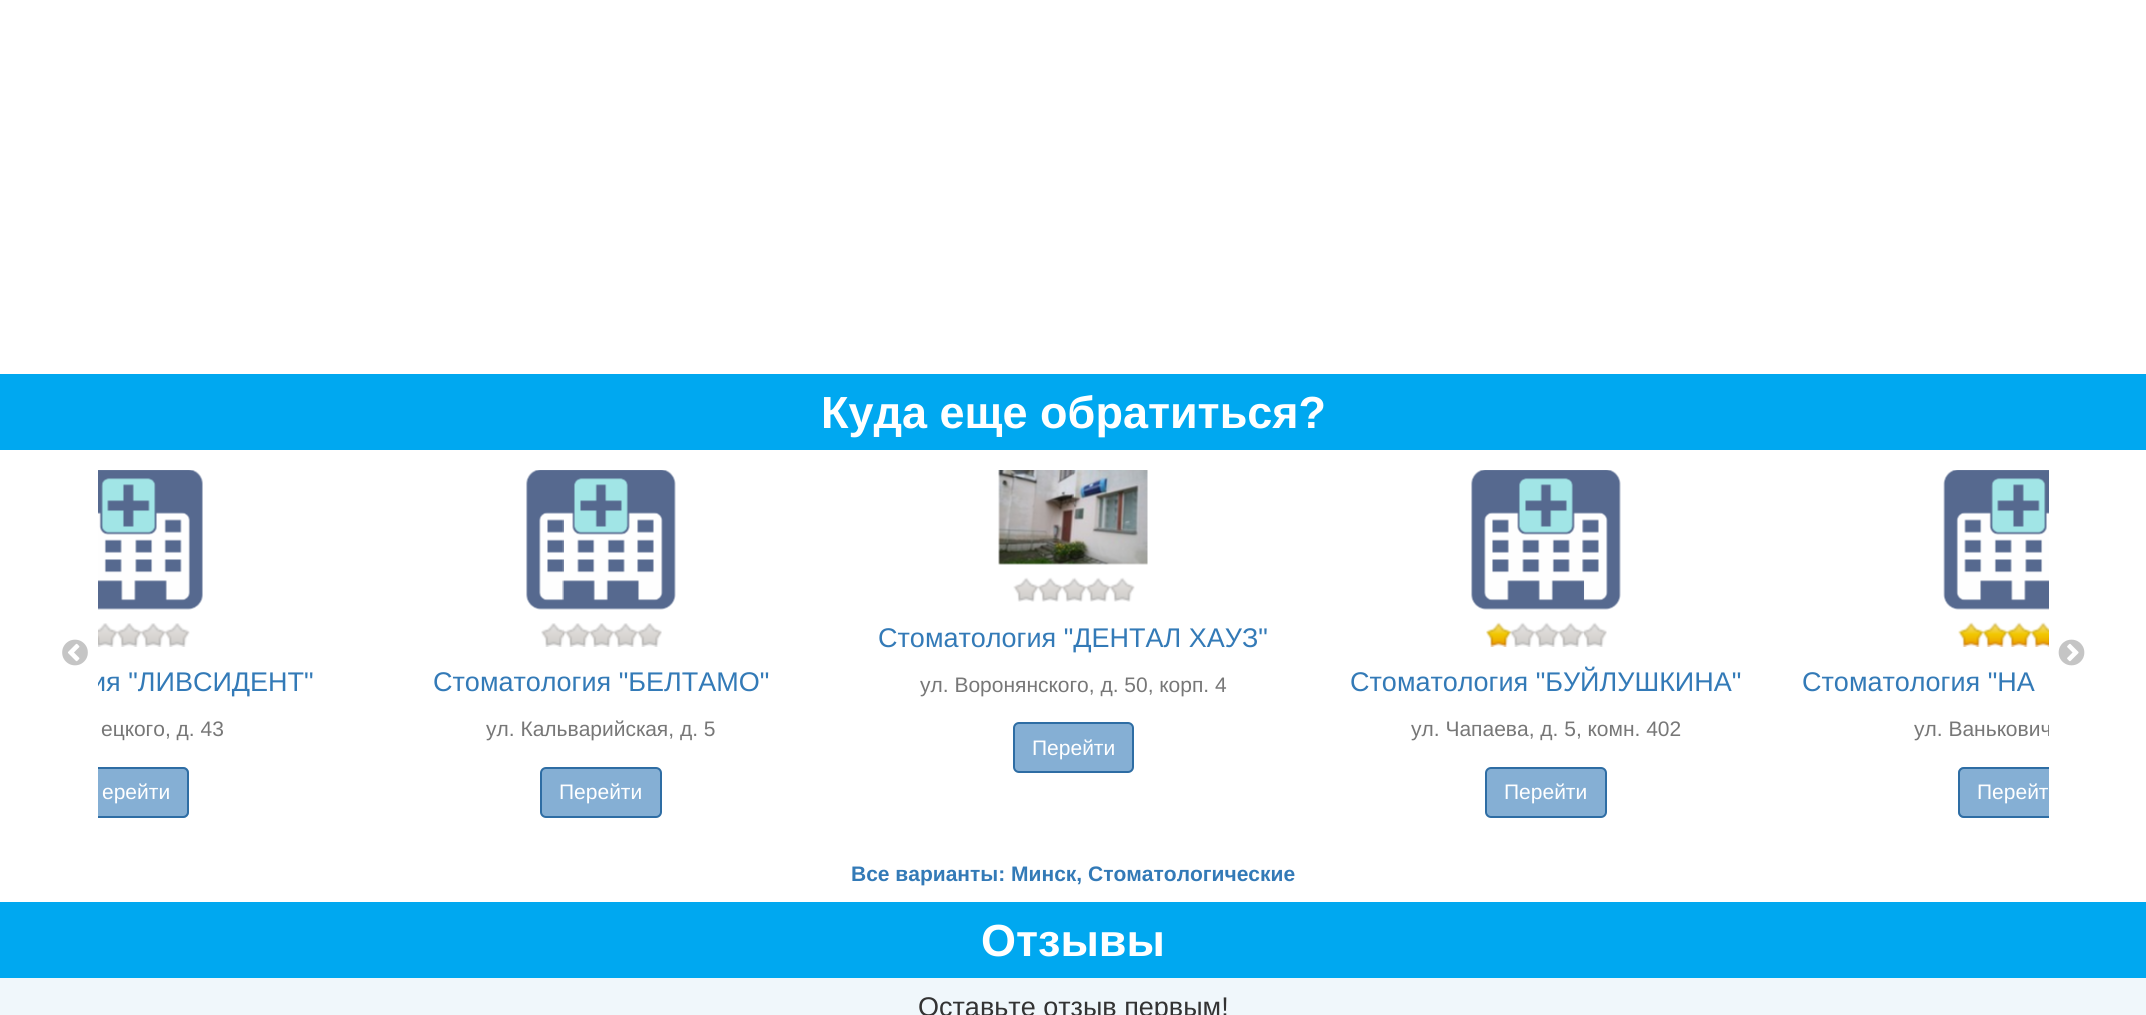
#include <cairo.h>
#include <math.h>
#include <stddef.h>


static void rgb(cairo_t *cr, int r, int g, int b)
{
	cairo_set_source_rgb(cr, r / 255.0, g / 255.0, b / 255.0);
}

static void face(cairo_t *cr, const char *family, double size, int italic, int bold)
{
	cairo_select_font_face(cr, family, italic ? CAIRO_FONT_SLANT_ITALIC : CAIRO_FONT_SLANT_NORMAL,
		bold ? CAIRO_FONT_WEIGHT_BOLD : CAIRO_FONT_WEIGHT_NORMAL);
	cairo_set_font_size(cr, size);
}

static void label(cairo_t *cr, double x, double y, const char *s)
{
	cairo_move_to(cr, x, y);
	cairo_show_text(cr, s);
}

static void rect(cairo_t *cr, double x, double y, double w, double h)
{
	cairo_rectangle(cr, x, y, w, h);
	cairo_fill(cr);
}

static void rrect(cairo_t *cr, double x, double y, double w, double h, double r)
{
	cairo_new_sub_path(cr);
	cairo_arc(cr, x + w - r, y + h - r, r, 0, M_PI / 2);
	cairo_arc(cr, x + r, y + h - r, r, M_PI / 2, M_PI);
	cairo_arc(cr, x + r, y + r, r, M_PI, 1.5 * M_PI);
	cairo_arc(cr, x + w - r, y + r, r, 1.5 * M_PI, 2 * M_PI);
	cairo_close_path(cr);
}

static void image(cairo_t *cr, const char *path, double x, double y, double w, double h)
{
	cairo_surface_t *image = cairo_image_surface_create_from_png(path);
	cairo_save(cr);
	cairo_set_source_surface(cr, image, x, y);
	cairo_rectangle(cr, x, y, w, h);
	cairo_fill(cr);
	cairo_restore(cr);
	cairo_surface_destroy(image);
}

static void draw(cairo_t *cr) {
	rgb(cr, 255, 255, 255);
	cairo_paint(cr);
	rgb(cr, 0, 168, 240);
	rect(cr, 0, 374, 2146, 76);
	face(cr, "Liberation Sans", 45, 0, 1);
	rgb(cr, 255, 255, 255);
	label(cr, 821, 428, "Куда еще обратиться?");
	image(cr, "image0.png", 62, 639, 26, 27);
	image(cr, "image1.png", 98, 470, 105, 140);
	image(cr, "image2.png", 98, 623, 92, 24);
	cairo_save(cr);
	cairo_rectangle(cr, 98, 464, 1951, 381);
	cairo_clip(cr);
	face(cr, "Liberation Sans", 27, 0, 0);
	rgb(cr, 51, 122, 183);
	label(cr, 91, 691, "ия \"ЛИВСИДЕНТ\"");
	cairo_restore(cr);
	face(cr, "Liberation Sans", 21, 0, 0);
	rgb(cr, 119, 119, 119);
	label(cr, 101, 736, "ецкого, д. 43");
	rgb(cr, 133, 175, 212);
	cairo_new_path(cr);
	cairo_move_to(cr, 98, 767);
	cairo_line_to(cr, 183, 767);
	cairo_curve_to(cr, 186.5, 767, 189, 769.5, 189, 773);
	cairo_line_to(cr, 189, 812);
	cairo_curve_to(cr, 189, 815.5, 186.5, 818, 183, 818);
	cairo_line_to(cr, 98, 818);
	cairo_close_path(cr);
	cairo_fill(cr);
	cairo_save(cr);
	cairo_rectangle(cr, 98, 464, 1951, 381);
	cairo_clip(cr);
	rrect(cr, 69, 768, 119, 49, 5);
	rgb(cr, 46, 109, 164);
	cairo_stroke(cr);
	cairo_restore(cr);
	rgb(cr, 255, 255, 255);
	label(cr, 102, 799, "ерейти");
	image(cr, "image3.png", 526, 470, 150, 140);
	image(cr, "image4.png", 541, 623, 121, 24);
	face(cr, "Liberation Sans", 27, 0, 0);
	rgb(cr, 51, 122, 183);
	label(cr, 433, 691, "Стоматология \"БЕЛТАМО\"");
	face(cr, "Liberation Sans", 21, 0, 0);
	rgb(cr, 119, 119, 119);
	label(cr, 486, 736, "ул. Кальварийская, д. 5");
	rgb(cr, 133, 175, 212);
	rrect(cr, 541, 768, 120, 49, 5);
	cairo_fill_preserve(cr);
	rgb(cr, 46, 109, 164);
	cairo_stroke(cr);
	rgb(cr, 255, 255, 255);
	label(cr, 559, 799, "Перейти");
	image(cr, "image5.png", 998, 470, 150, 95);
	image(cr, "image6.png", 1013, 577, 122, 25);
	face(cr, "Liberation Sans", 27, 0, 0);
	rgb(cr, 51, 122, 183);
	label(cr, 878, 647, "Стоматология \"ДЕНТАЛ ХАУЗ\"");
	face(cr, "Liberation Sans", 21, 0, 0);
	rgb(cr, 119, 119, 119);
	label(cr, 920, 692, "ул. Воронянского, д. 50, корп. 4");
	rgb(cr, 133, 175, 212);
	rrect(cr, 1014, 723, 119, 49, 5);
	cairo_fill_preserve(cr);
	rgb(cr, 46, 109, 164);
	cairo_stroke(cr);
	rgb(cr, 255, 255, 255);
	label(cr, 1032, 755, "Перейти");
	image(cr, "image7.png", 1471, 470, 150, 140);
	image(cr, "image8.png", 1486, 622, 121, 25);
	face(cr, "Liberation Sans", 27, 0, 0);
	rgb(cr, 51, 122, 183);
	label(cr, 1350, 691, "Стоматология \"БУЙЛУШКИНА\"");
	face(cr, "Liberation Sans", 21, 0, 0);
	rgb(cr, 119, 119, 119);
	label(cr, 1411, 736, "ул. Чапаева, д. 5, комн. 402");
	rgb(cr, 133, 175, 212);
	rrect(cr, 1486, 768, 120, 49, 5);
	cairo_fill_preserve(cr);
	rgb(cr, 46, 109, 164);
	cairo_stroke(cr);
	rgb(cr, 255, 255, 255);
	label(cr, 1504, 799, "Перейти");
	image(cr, "image9.png", 1943, 470, 106, 140);
	image(cr, "image10.png", 1958, 622, 91, 25);
	face(cr, "Liberation Sans", 27, 0, 0);
	rgb(cr, 51, 122, 183);
	label(cr, 1802, 691, "Стоматология \"НА");
	cairo_save(cr);
	cairo_rectangle(cr, 98, 464, 1951, 381);
	cairo_clip(cr);
	face(cr, "Liberation Sans", 21, 0, 0);
	rgb(cr, 119, 119, 119);
	label(cr, 1914, 736, "ул. Ванькович");
	cairo_restore(cr);
	rgb(cr, 133, 175, 212);
	cairo_new_path(cr);
	cairo_move_to(cr, 1964, 767);
	cairo_line_to(cr, 2049, 767);
	cairo_line_to(cr, 2049, 818);
	cairo_line_to(cr, 1964, 818);
	cairo_curve_to(cr, 1960.5, 818, 1958, 815.5, 1958, 812);
	cairo_line_to(cr, 1958, 773);
	cairo_curve_to(cr, 1958, 769.5, 1960.5, 767, 1964, 767);
	cairo_close_path(cr);
	cairo_fill(cr);
	cairo_save(cr);
	cairo_rectangle(cr, 98, 464, 1951, 381);
	cairo_clip(cr);
	rrect(cr, 1959, 768, 119, 49, 5);
	rgb(cr, 46, 109, 164);
	cairo_stroke(cr);
	cairo_restore(cr);
	face(cr, "Liberation Sans", 21, 0, 0);
	rgb(cr, 255, 255, 255);
	label(cr, 1977, 799, "Перейт");
	image(cr, "image11.png", 2058, 639, 27, 27);
	face(cr, "Liberation Sans", 21, 0, 1);
	rgb(cr, 51, 122, 183);
	label(cr, 851, 881, "Все варианты: Минск, Стоматологические");
	rgb(cr, 240, 247, 251);
	rect(cr, 0, 978, 2146, 37);
	rgb(cr, 0, 168, 240);
	rect(cr, 0, 902, 2146, 76);
	face(cr, "Liberation Sans", 45, 0, 1);
	rgb(cr, 255, 255, 255);
	label(cr, 981, 956, "Отзывы");
	face(cr, "Liberation Sans", 27, 0, 0);
	rgb(cr, 51, 51, 51);
	label(cr, 918, 1016, "Оставьте отзыв первым!");
}

int main(void) {
	cairo_surface_t *surface = cairo_image_surface_create(CAIRO_FORMAT_RGB24, 2146, 1015);
	cairo_t *cr = cairo_create(surface);
	cairo_font_options_t *options = cairo_font_options_create();
	cairo_font_options_set_hint_metrics(options, CAIRO_HINT_METRICS_OFF);
	cairo_font_options_set_hint_style(options, CAIRO_HINT_STYLE_NONE);
	cairo_set_font_options(cr, options);
	cairo_set_miter_limit(cr, 4);
	draw(cr);
	cairo_surface_write_to_png(surface, "render.png");
	cairo_font_options_destroy(options);
	cairo_destroy(cr);
	cairo_surface_destroy(surface);
	return 0;
}
